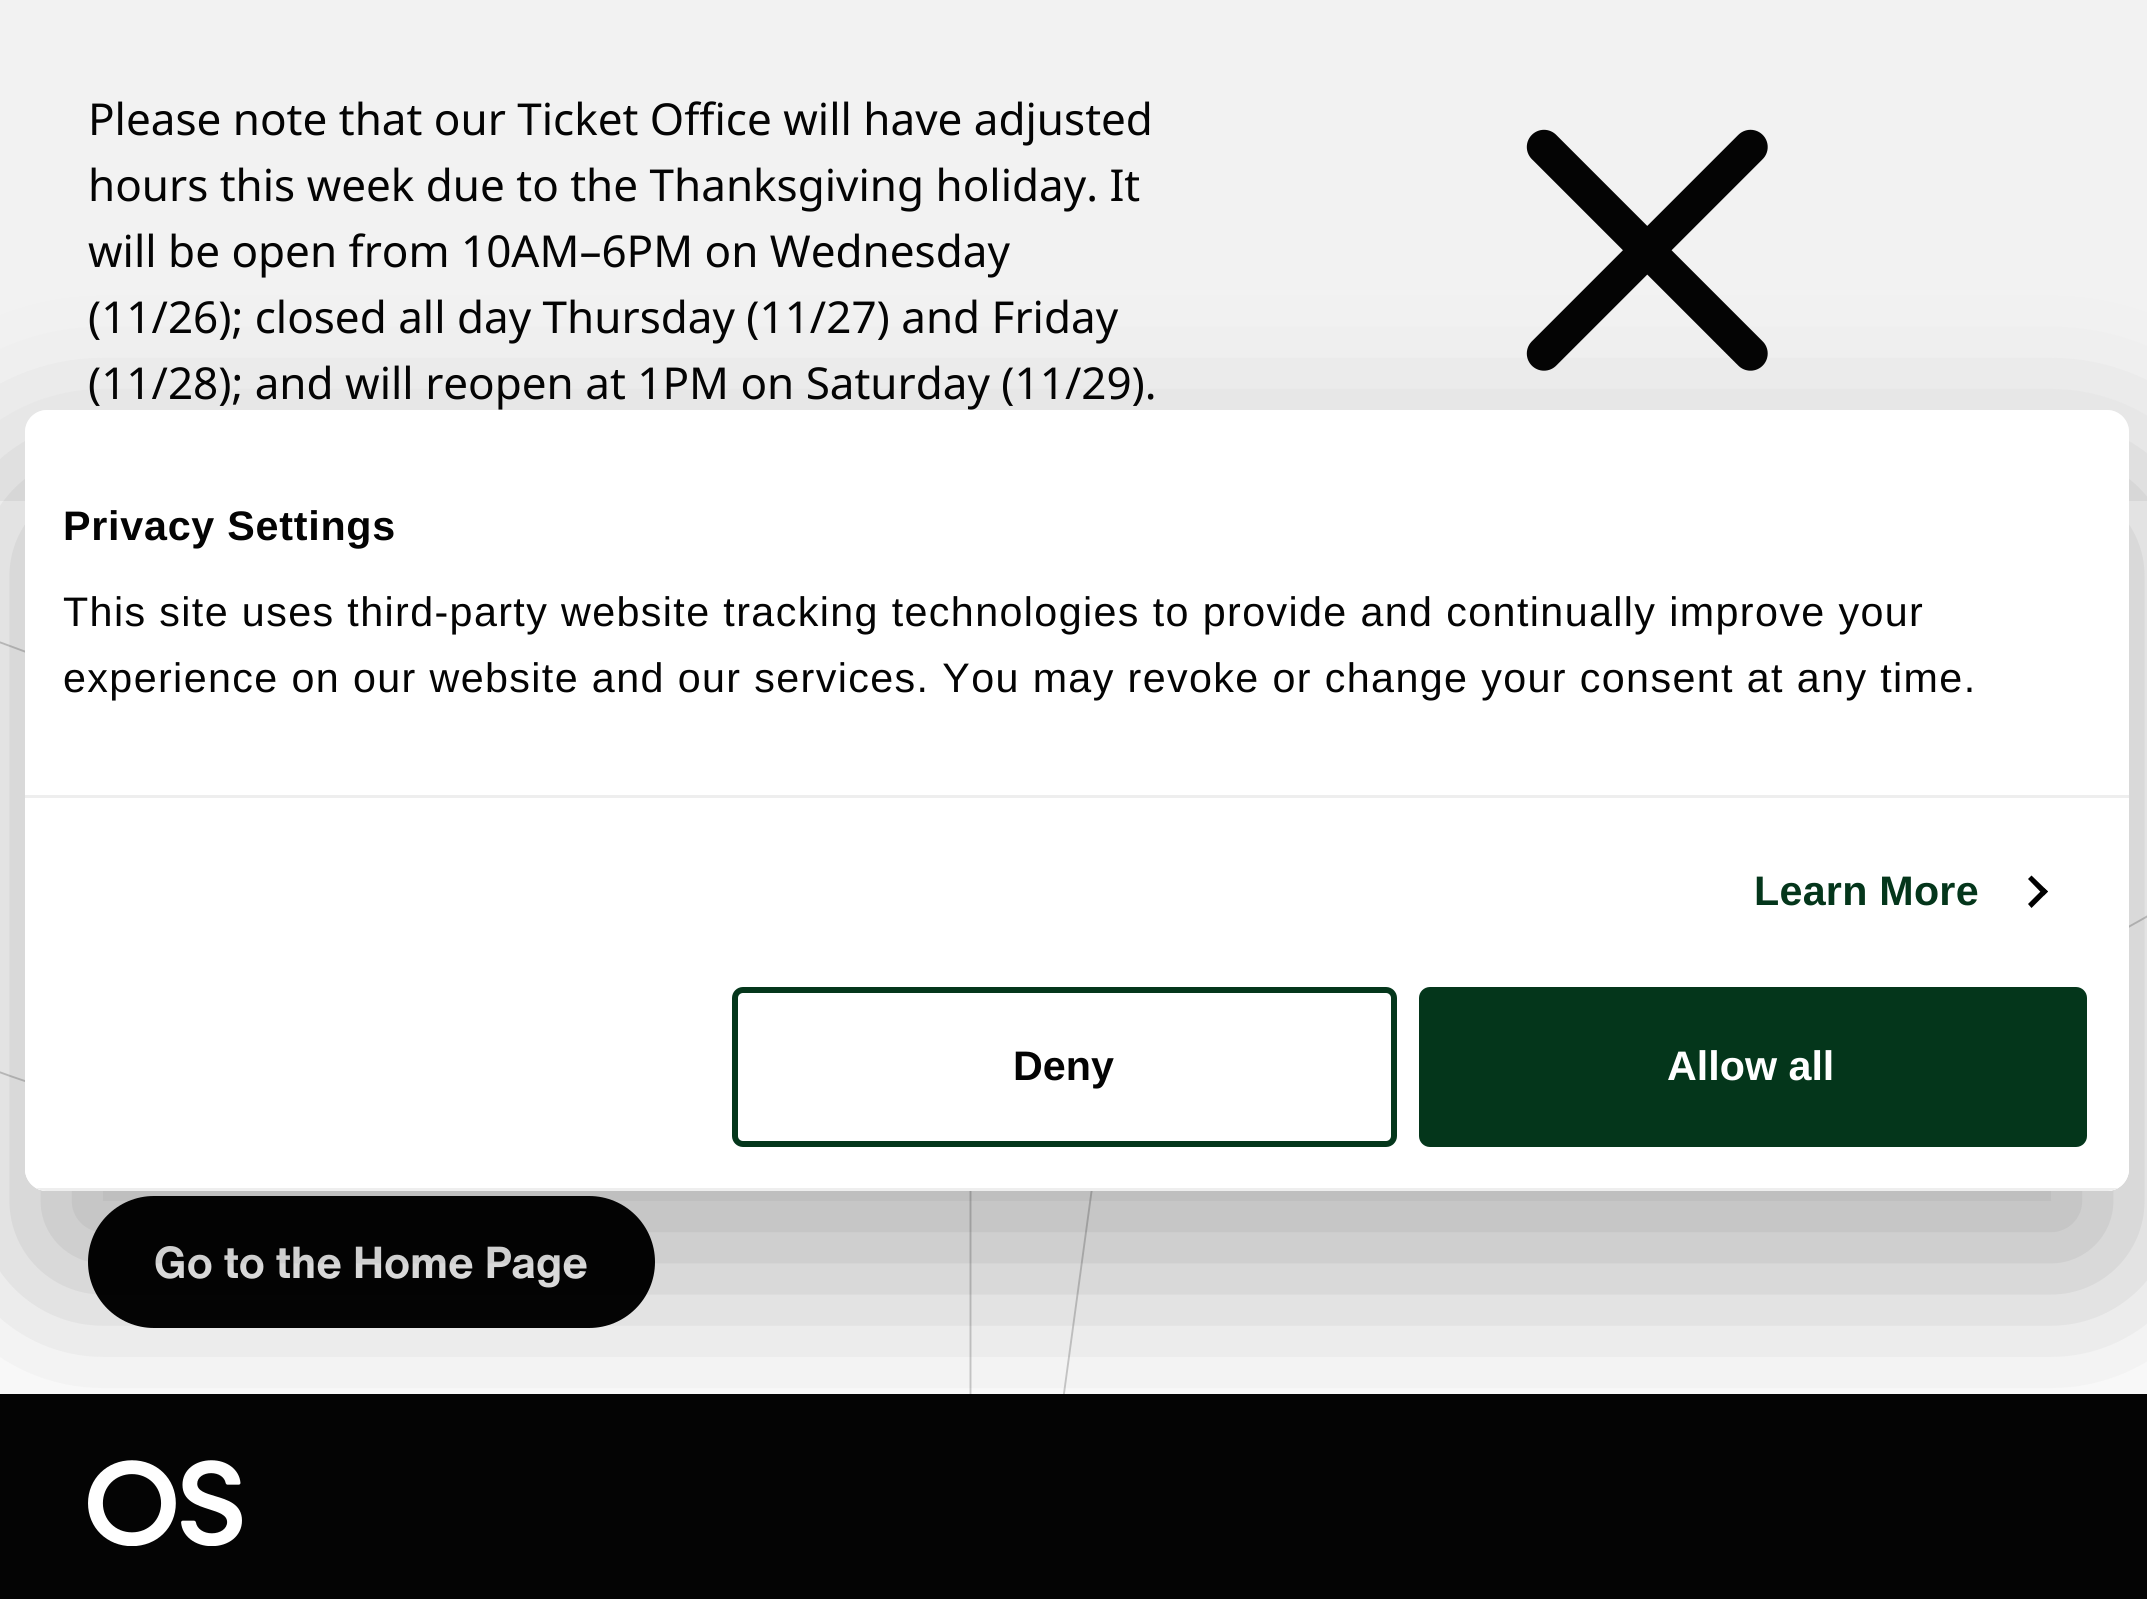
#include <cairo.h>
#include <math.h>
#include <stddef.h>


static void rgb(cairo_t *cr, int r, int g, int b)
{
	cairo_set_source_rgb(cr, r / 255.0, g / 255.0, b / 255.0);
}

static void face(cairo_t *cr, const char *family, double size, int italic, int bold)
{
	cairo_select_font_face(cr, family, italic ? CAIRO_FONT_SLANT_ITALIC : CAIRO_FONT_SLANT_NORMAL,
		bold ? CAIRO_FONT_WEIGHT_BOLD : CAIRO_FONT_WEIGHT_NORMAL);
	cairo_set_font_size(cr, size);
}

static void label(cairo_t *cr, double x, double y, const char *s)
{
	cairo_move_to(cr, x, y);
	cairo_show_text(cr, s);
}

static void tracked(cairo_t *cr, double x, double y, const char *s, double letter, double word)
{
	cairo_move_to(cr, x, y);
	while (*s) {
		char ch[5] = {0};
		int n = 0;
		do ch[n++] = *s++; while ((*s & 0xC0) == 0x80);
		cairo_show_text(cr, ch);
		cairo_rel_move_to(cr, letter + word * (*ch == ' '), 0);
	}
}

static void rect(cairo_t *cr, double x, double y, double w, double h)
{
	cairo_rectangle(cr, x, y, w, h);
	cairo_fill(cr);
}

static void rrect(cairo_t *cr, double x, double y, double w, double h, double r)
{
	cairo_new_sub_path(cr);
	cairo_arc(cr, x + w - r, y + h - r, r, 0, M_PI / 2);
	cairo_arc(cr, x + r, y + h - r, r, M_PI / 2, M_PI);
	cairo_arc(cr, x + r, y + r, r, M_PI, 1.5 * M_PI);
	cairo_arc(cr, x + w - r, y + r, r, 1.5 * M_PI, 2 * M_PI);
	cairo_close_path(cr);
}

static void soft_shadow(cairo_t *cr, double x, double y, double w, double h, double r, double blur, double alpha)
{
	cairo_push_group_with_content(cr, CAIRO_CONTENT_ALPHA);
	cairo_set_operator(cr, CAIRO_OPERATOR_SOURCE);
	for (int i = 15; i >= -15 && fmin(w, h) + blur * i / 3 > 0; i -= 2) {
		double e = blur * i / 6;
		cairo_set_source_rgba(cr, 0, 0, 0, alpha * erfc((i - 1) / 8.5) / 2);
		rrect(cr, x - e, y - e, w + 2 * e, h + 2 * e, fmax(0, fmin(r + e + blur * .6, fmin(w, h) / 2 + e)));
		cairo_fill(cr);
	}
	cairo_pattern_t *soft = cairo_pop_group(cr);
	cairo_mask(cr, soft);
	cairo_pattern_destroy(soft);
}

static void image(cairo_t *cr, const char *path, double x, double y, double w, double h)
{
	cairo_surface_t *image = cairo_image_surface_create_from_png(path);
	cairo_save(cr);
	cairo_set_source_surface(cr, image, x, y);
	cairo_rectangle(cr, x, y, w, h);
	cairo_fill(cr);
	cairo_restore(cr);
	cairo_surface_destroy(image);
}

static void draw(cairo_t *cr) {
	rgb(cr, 255, 255, 255);
	cairo_paint(cr);
	rgb(cr, 242, 242, 242);
	rect(cr, 0, 0, 2147, 501);
	face(cr, "Noto Sans", 44, 0, 0);
	rgb(cr, 4, 4, 4);
	label(cr, 88, 135, "Please note that our Ticket Office will have adjusted");
	label(cr, 88, 201, "hours this week due to the Thanksgiving holiday. It");
	label(cr, 88, 267, "will be open from 10AM–6PM on Wednesday");
	label(cr, 88, 333, "(11/26); closed all day Thursday (11/27) and Friday");
	label(cr, 88, 399, "(11/28); and will reopen at 1PM on Saturday (11/29).");
	cairo_new_path(cr);
	cairo_move_to(cr, 1750.5, 147);
	cairo_line_to(cr, 1544, 353.5);
	cairo_move_to(cr, 1544, 147);
	cairo_line_to(cr, 1750.5, 353.5);
	cairo_set_line_width(cr, 34.4);
	cairo_set_line_cap(cr, CAIRO_LINE_CAP_ROUND);
	cairo_set_line_join(cr, CAIRO_LINE_JOIN_ROUND);
	cairo_stroke(cr);
	cairo_save(cr);
	cairo_rectangle(cr, 0, 501, 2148, 893);
	cairo_clip(cr);
	cairo_new_path(cr);
	cairo_move_to(cr, 970.5, -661.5);
	cairo_line_to(cr, 970.5, 704.5);
	cairo_move_to(cr, 970.5, 704.5);
	cairo_line_to(cr, 970.5, 1002);
	cairo_move_to(cr, 970.5, 704.5);
	cairo_line_to(cr, 1184, 509);
	cairo_line_to(cr, 1111, 1048.5);
	cairo_move_to(cr, 970.5, 704.5);
	cairo_line_to(cr, 739, 916);
	cairo_move_to(cr, 970.5, 1002);
	cairo_line_to(cr, 970.5, 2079.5);
	cairo_line_to(cr, 1111, 1048.5);
	cairo_move_to(cr, 970.5, 1002);
	cairo_line_to(cr, 739, 916);
	cairo_move_to(cr, 970.5, 1002);
	cairo_curve_to(cr, 1017, 1019, 1063, 1035.5, 1111, 1048.5);
	cairo_move_to(cr, 1111, 1048.5);
	cairo_curve_to(cr, 1765, 1228.5, 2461.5, 896, 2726, 258.5);
	cairo_move_to(cr, 739, 916);
	cairo_line_to(cr, 723.5, 930.5);
	cairo_curve_to(cr, 291, 1326, -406.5, 1055.5, -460, 472);
	cairo_close_path(cr);
	rgb(cr, 205, 205, 205);
	cairo_set_line_width(cr, 1.9);
	cairo_set_line_cap(cr, CAIRO_LINE_CAP_BUTT);
	cairo_set_line_join(cr, CAIRO_LINE_JOIN_MITER);
	cairo_stroke(cr);
	cairo_restore(cr);
	rrect(cr, 88, 1196, 567, 132, 66);
	cairo_fill(cr);
	face(cr, "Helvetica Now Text", 44, 0, 1);
	rgb(cr, 255, 255, 255);
	label(cr, 154, 1278, "Go to the Home Page");
	rgb(cr, 4, 4, 4);
	rect(cr, 0, 1394, 2147, 205);
	image(cr, "image0.png", 88, 1460, 154, 86);
	cairo_save(cr);
	cairo_set_fill_rule(cr, CAIRO_FILL_RULE_EVEN_ODD);
	cairo_new_path(cr);
	cairo_move_to(cr, 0, 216);
	cairo_line_to(cr, 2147, 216);
	cairo_line_to(cr, 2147, 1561);
	cairo_line_to(cr, 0, 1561);
	cairo_close_path(cr);
	cairo_move_to(cr, 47, 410);
	cairo_line_to(cr, 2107, 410);
	cairo_curve_to(cr, 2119, 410, 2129, 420, 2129, 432);
	cairo_line_to(cr, 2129, 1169);
	cairo_curve_to(cr, 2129, 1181, 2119, 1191, 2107, 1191);
	cairo_line_to(cr, 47, 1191);
	cairo_curve_to(cr, 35, 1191, 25, 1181, 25, 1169);
	cairo_line_to(cr, 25, 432);
	cairo_curve_to(cr, 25, 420, 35, 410, 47, 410);
	cairo_close_path(cr);
	cairo_clip(cr);
	rgb(cr, 0, 0, 0);
	soft_shadow(cr, 25, 498, 2104, 781, 22, 93.5, 0.3);
	cairo_restore(cr);
	rgb(cr, 255, 255, 255);
	rrect(cr, 25, 410, 2104, 781, 22);
	cairo_fill(cr);
	rgb(cr, 238, 238, 238);
	rect(cr, 25, 795, 2104, 3);
	face(cr, "Liberation Sans", 41.25, 0, 1);
	rgb(cr, 4, 4, 4);
	tracked(cr, 63, 540, "Privacy Settings", 0.75, 0);
	face(cr, "Liberation Sans", 41.25, 0, 0);
	tracked(cr, 63, 626, "This site uses third-party website tracking technologies to provide and continually improve your", 1.38, 0);
	tracked(cr, 63, 692, "experience on our website and our services. You may revoke or change your consent at any time.", 1.38, 0);
	face(cr, "Liberation Sans", 41.25, 0, 1);
	rgb(cr, 4, 54, 27);
	tracked(cr, 1754, 905, "Learn More", 0.25, 0);
	rgb(cr, 0, 0, 0);
	cairo_new_path(cr);
	cairo_move_to(cr, 2031.5, 875.5);
	cairo_line_to(cr, 2048, 891.5);
	cairo_line_to(cr, 2044, 895.5);
	cairo_line_to(cr, 2028, 879);
	cairo_close_path(cr);
	cairo_fill(cr);
	cairo_new_path(cr);
	cairo_move_to(cr, 2044, 888);
	cairo_line_to(cr, 2048, 891.5);
	cairo_line_to(cr, 2031.5, 908);
	cairo_line_to(cr, 2028, 904);
	cairo_close_path(cr);
	cairo_fill(cr);
	cairo_save(cr);
	rrect(cr, 25, 410, 2104, 781, 22);
	cairo_clip(cr);
	rgb(cr, 238, 238, 238);
	rect(cr, 36, 1188, 2082, 3);
	cairo_restore(cr);
	rrect(cr, 735, 990, 659, 154, 8);
	rgb(cr, 4, 54, 27);
	cairo_set_line_width(cr, 6);
	cairo_set_line_cap(cr, CAIRO_LINE_CAP_BUTT);
	cairo_set_line_join(cr, CAIRO_LINE_JOIN_MITER);
	cairo_stroke(cr);
	rgb(cr, 4, 4, 4);
	label(cr, 1013, 1080, "Deny");
	rgb(cr, 4, 54, 27);
	rrect(cr, 1422, 990, 662, 154, 8);
	cairo_fill_preserve(cr);
	cairo_stroke(cr);
	rgb(cr, 255, 255, 255);
	label(cr, 1667, 1080, "Allow all");
}

int main(void) {
	cairo_surface_t *surface = cairo_image_surface_create(CAIRO_FORMAT_RGB24, 2147, 1599);
	cairo_t *cr = cairo_create(surface);
	cairo_font_options_t *options = cairo_font_options_create();
	cairo_font_options_set_hint_metrics(options, CAIRO_HINT_METRICS_OFF);
	cairo_font_options_set_hint_style(options, CAIRO_HINT_STYLE_NONE);
	cairo_set_font_options(cr, options);
	cairo_set_miter_limit(cr, 4);
	draw(cr);
	cairo_surface_write_to_png(surface, "render.png");
	cairo_font_options_destroy(options);
	cairo_destroy(cr);
	cairo_surface_destroy(surface);
	return 0;
}
